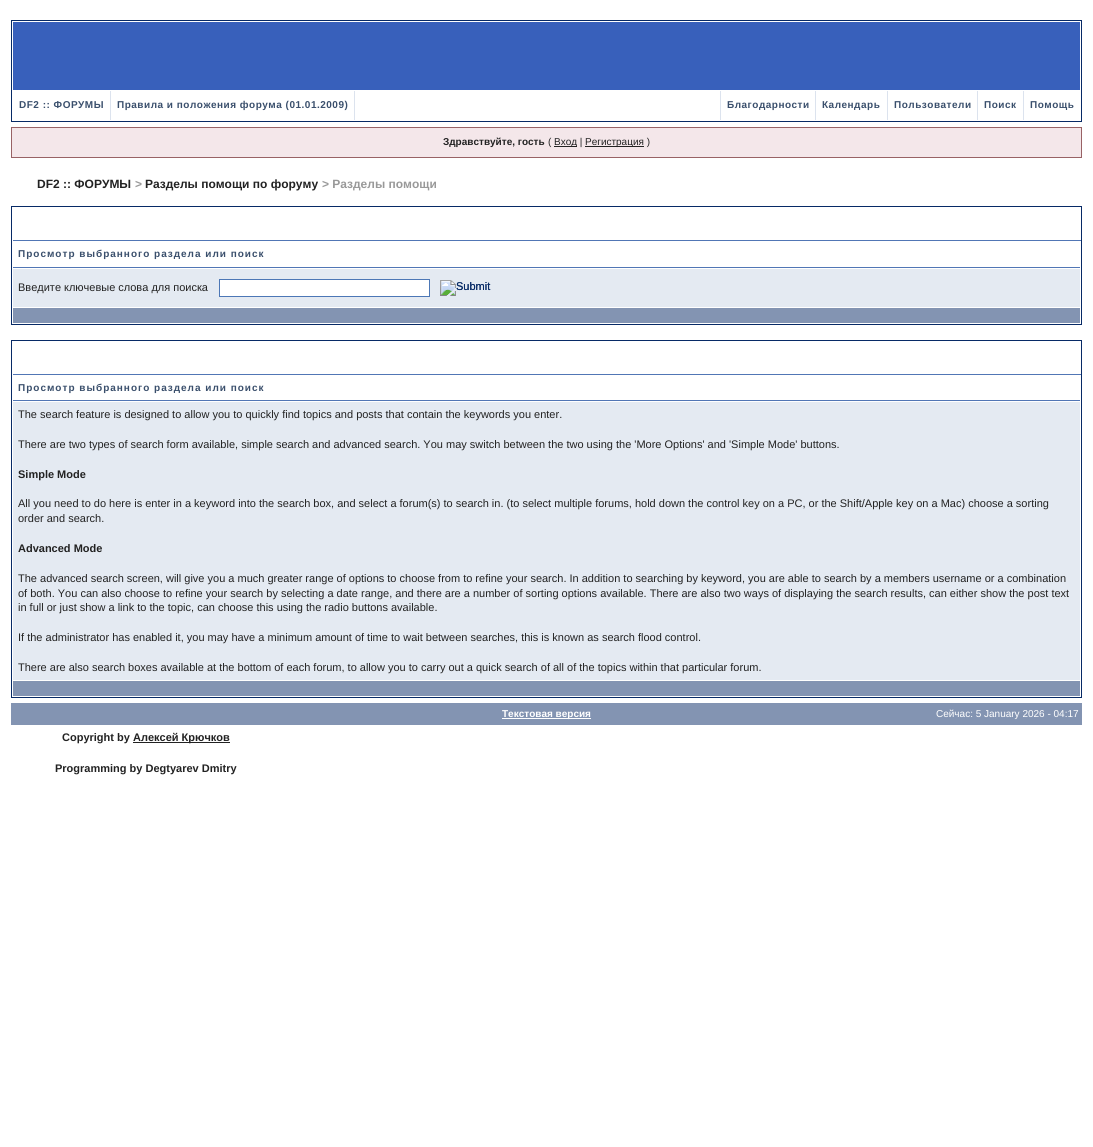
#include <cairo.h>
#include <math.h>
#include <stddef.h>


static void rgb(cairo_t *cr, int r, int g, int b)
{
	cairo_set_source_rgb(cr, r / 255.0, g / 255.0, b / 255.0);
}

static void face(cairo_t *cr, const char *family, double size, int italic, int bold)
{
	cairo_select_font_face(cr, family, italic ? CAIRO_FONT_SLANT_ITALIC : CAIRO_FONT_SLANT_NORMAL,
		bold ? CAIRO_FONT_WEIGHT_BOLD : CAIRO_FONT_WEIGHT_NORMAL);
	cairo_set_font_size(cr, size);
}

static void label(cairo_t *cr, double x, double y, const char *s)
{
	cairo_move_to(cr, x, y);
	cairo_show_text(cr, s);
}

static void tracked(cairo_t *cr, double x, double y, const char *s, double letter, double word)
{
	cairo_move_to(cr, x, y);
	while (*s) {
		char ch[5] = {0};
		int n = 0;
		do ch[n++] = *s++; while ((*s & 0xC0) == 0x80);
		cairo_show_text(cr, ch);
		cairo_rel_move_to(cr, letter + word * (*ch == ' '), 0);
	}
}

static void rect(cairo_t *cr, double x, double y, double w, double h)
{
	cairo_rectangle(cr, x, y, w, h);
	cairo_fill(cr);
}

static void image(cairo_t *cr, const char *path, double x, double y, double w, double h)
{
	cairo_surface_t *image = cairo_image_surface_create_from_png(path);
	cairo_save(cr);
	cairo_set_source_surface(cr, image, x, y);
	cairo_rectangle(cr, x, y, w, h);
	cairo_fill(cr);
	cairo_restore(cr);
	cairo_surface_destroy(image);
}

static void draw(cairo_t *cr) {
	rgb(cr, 255, 255, 255);
	cairo_paint(cr);
	cairo_rectangle(cr, 11.5, 20.5, 1070, 101);
	rgb(cr, 7, 42, 102);
	cairo_set_line_width(cr, 1);
	cairo_stroke(cr);
	rgb(cr, 56, 96, 187);
	rect(cr, 13, 22, 1067, 68);
	rgb(cr, 220, 227, 238);
	rect(cr, 110, 91, 1, 29);
	face(cr, "Liberation Sans", 10, 0, 1);
	rgb(cr, 58, 79, 108);
	tracked(cr, 19, 108, "DF2 :: ФОРУМЫ", 0.5, 0);
	rgb(cr, 220, 227, 238);
	rect(cr, 354, 91, 1, 29);
	rgb(cr, 58, 79, 108);
	tracked(cr, 117, 108, "Правила и положения форума (01.01.2009)", 0.5, 0);
	rgb(cr, 220, 227, 238);
	rect(cr, 720, 91, 1, 29);
	rgb(cr, 58, 79, 108);
	tracked(cr, 727, 108, "Благодарности", 0.5, 0);
	rgb(cr, 220, 227, 238);
	rect(cr, 815, 91, 1, 29);
	rgb(cr, 58, 79, 108);
	tracked(cr, 822, 108, "Календарь", 0.5, 0);
	rgb(cr, 220, 227, 238);
	rect(cr, 887, 91, 1, 29);
	rgb(cr, 58, 79, 108);
	tracked(cr, 894, 108, "Пользователи", 0.5, 0);
	rgb(cr, 220, 227, 238);
	rect(cr, 977, 91, 1, 29);
	rgb(cr, 58, 79, 108);
	tracked(cr, 984, 108, "Поиск", 0.5, 0);
	rgb(cr, 220, 227, 238);
	rect(cr, 1023, 91, 1, 29);
	rgb(cr, 58, 79, 108);
	tracked(cr, 1030, 108, "Помощь", 0.5, 0);
	rgb(cr, 244, 231, 234);
	cairo_rectangle(cr, 11.5, 127.5, 1070, 30);
	cairo_fill_preserve(cr);
	rgb(cr, 152, 98, 101);
	cairo_stroke(cr);
	rgb(cr, 34, 34, 34);
	label(cr, 443, 145, "Здравствуйте, гость");
	face(cr, "Liberation Sans", 10, 0, 0);
	label(cr, 548, 145, "(");
	rect(cr, 554, 146, 23, 1);
	label(cr, 554, 145, "Вход |");
	rect(cr, 585, 146, 59, 1);
	label(cr, 585, 145, "Регистрация )");
	face(cr, "Liberation Sans", 12, 0, 1);
	label(cr, 37, 188, "DF2 :: ФОРУМЫ");
	rgb(cr, 153, 153, 153);
	label(cr, 135, 188, ">");
	rgb(cr, 34, 34, 34);
	label(cr, 145, 188, "Разделы помощи по форуму");
	rgb(cr, 153, 153, 153);
	label(cr, 322, 188, "> Разделы помощи");
	cairo_rectangle(cr, 11.5, 206.5, 1070, 118);
	rgb(cr, 7, 42, 102);
	cairo_stroke(cr);
	rgb(cr, 81, 118, 181);
	rect(cr, 12, 240, 1069, 1);
	rgb(cr, 255, 255, 255);
	rect(cr, 12, 240, 1, 1);
	rgb(cr, 81, 118, 181);
	rect(cr, 13, 267, 1067, 1);
	face(cr, "Liberation Sans", 10, 0, 1);
	rgb(cr, 58, 79, 108);
	tracked(cr, 18, 257, "Просмотр выбранного раздела или поиск", 1, 0);
	rgb(cr, 228, 234, 242);
	rect(cr, 13, 269, 1067, 38);
	face(cr, "Liberation Sans", 11, 0, 0);
	rgb(cr, 34, 34, 34);
	label(cr, 18, 291, "Введите ключевые слова для поиска");
	rgb(cr, 255, 255, 255);
	cairo_rectangle(cr, 219.5, 279.5, 210, 17);
	cairo_fill_preserve(cr);
	rgb(cr, 76, 119, 182);
	cairo_stroke(cr);
	image(cr, "image0.png", 440, 280, 51, 16);
	rgb(cr, 7, 42, 102);
	label(cr, 456, 290, "Submit");
	rgb(cr, 131, 148, 178);
	rect(cr, 13, 308, 1067, 15);
	cairo_rectangle(cr, 11.5, 340.5, 1070, 357);
	rgb(cr, 7, 42, 102);
	cairo_stroke(cr);
	rgb(cr, 81, 118, 181);
	rect(cr, 12, 374, 1069, 1);
	rgb(cr, 255, 255, 255);
	rect(cr, 12, 374, 1, 1);
	rgb(cr, 81, 118, 181);
	rect(cr, 13, 400, 1067, 1);
	face(cr, "Liberation Sans", 10, 0, 1);
	rgb(cr, 58, 79, 108);
	tracked(cr, 18, 391, "Просмотр выбранного раздела или поиск", 1, 0);
	rgb(cr, 228, 234, 242);
	rect(cr, 13, 402, 1067, 278);
	face(cr, "Liberation Sans", 11, 0, 0);
	rgb(cr, 34, 34, 34);
	label(cr, 18, 418, "The search feature is designed to allow you to quickly find topics and posts that contain the keywords you enter.");
	label(cr, 18, 448, "There are two types of search form available, simple search and advanced search. You may switch between the two using the 'More Options' and 'Simple Mode' buttons.");
	face(cr, "Liberation Sans", 11, 0, 1);
	label(cr, 18, 478, "Simple Mode");
	face(cr, "Liberation Sans", 11, 0, 0);
	label(cr, 18, 507, "All you need to do here is enter in a keyword into the search box, and select a forum(s) to search in. (to select multiple forums, hold down the control key on a PC, or the Shift/Apple key on a Mac) choose a sorting");
	label(cr, 18, 522, "order and search.");
	face(cr, "Liberation Sans", 11, 0, 1);
	label(cr, 18, 552, "Advanced Mode");
	face(cr, "Liberation Sans", 11, 0, 0);
	label(cr, 18, 582, "The advanced search screen, will give you a much greater range of options to choose from to refine your search. In addition to searching by keyword, you are able to search by a members username or a combination");
	label(cr, 18, 597, "of both. You can also choose to refine your search by selecting a date range, and there are a number of sorting options available. There are also two ways of displaying the search results, can either show the post text");
	label(cr, 18, 611, "in full or just show a link to the topic, can choose this using the radio buttons available.");
	label(cr, 18, 641, "If the administrator has enabled it, you may have a minimum amount of time to wait between searches, this is known as search flood control.");
	label(cr, 18, 671, "There are also search boxes available at the bottom of each forum, to allow you to carry out a quick search of all of the topics within that particular forum.");
	rgb(cr, 131, 148, 178);
	rect(cr, 13, 681, 1067, 15);
	rect(cr, 11, 703, 1071, 22);
	rgb(cr, 255, 255, 255);
	rect(cr, 502, 718, 89, 1);
	face(cr, "Liberation Sans", 10, 0, 1);
	label(cr, 502, 717, "Текстовая версия");
	face(cr, "Liberation Sans", 10, 0, 0);
	label(cr, 936, 717, "Сейчас: 5 January 2026 - 04:17");
	face(cr, "Liberation Sans", 11, 0, 1);
	rgb(cr, 34, 34, 34);
	label(cr, 62, 741, "Copyright by");
	rect(cr, 133, 742, 97, 1);
	label(cr, 133, 741, "Алексей Крючков");
	label(cr, 55, 772, "Programming by Degtyarev Dmitry");
}

int main(void) {
	cairo_surface_t *surface = cairo_image_surface_create(CAIRO_FORMAT_RGB24, 1093, 1147);
	cairo_t *cr = cairo_create(surface);
	cairo_font_options_t *options = cairo_font_options_create();
	cairo_font_options_set_hint_metrics(options, CAIRO_HINT_METRICS_OFF);
	cairo_font_options_set_hint_style(options, CAIRO_HINT_STYLE_NONE);
	cairo_set_font_options(cr, options);
	cairo_set_miter_limit(cr, 4);
	draw(cr);
	cairo_surface_write_to_png(surface, "render.png");
	cairo_font_options_destroy(options);
	cairo_destroy(cr);
	cairo_surface_destroy(surface);
	return 0;
}
